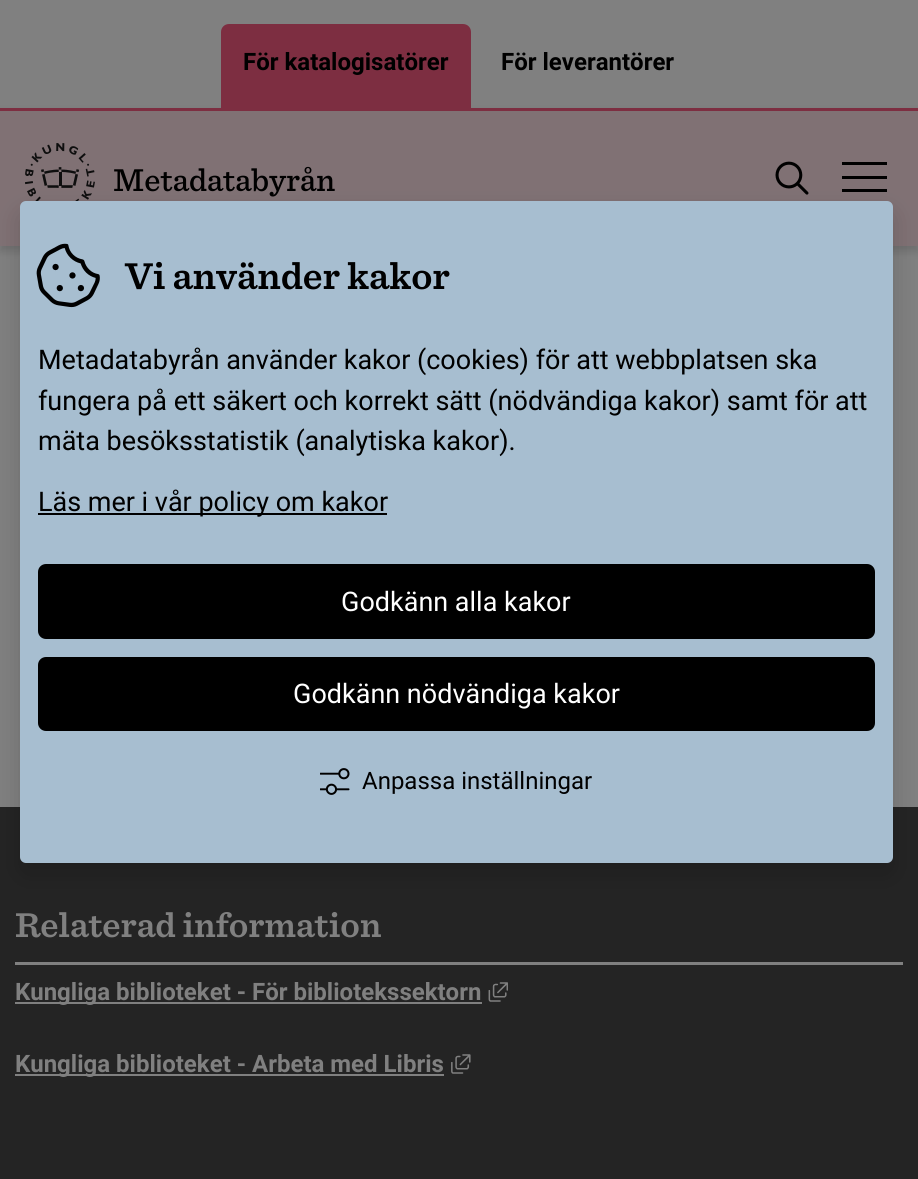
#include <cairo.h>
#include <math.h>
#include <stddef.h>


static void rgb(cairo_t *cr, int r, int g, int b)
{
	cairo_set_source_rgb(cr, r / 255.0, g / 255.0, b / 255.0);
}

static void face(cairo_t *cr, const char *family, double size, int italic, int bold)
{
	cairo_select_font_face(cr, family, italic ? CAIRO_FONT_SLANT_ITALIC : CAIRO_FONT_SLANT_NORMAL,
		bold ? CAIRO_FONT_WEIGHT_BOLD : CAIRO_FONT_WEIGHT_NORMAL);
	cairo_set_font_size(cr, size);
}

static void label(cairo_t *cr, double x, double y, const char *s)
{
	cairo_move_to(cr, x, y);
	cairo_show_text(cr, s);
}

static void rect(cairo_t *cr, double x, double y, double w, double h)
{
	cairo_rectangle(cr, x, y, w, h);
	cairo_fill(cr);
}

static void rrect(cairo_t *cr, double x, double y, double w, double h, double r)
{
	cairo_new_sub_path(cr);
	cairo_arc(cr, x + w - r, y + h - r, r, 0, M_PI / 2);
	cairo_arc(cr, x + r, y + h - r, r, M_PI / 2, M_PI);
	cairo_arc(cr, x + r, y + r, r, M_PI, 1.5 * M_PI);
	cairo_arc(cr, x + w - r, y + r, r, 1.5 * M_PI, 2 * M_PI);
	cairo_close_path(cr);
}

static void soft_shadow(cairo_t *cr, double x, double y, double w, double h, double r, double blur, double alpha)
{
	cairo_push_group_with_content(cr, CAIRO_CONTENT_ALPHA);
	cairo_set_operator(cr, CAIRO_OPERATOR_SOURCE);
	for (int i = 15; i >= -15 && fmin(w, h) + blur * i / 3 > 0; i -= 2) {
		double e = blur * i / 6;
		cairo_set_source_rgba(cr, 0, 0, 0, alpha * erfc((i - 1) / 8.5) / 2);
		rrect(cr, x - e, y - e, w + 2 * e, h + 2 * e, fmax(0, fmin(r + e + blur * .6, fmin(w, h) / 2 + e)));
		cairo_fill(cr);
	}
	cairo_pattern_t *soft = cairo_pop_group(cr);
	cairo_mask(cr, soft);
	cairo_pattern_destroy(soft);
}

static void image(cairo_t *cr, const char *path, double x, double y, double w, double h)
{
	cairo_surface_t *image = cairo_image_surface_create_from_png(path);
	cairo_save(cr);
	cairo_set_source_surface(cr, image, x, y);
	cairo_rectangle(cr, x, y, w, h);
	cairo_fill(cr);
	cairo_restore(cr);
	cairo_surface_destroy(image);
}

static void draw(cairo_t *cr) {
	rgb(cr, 128, 128, 128);
	cairo_paint(cr);
	rgb(cr, 0, 0, 0);
	soft_shadow(cr, 0, 113, 918, 138, 0, 4.5, 0.15);
	rgb(cr, 125, 46, 65);
	cairo_new_path(cr);
	cairo_move_to(cr, 229, 24);
	cairo_line_to(cr, 463, 24);
	cairo_curve_to(cr, 467.5, 24, 471, 27.5, 471, 32);
	cairo_line_to(cr, 471, 108);
	cairo_line_to(cr, 221, 108);
	cairo_line_to(cr, 221, 32);
	cairo_curve_to(cr, 221, 27.5, 224.5, 24, 229, 24);
	cairo_close_path(cr);
	cairo_fill(cr);
	face(cr, "Roboto", 24, 0, 1);
	rgb(cr, 0, 0, 0);
	label(cr, 243, 70, "För katalogisatörer");
	label(cr, 501, 70, "För leverantörer");
	rgb(cr, 128, 113, 116);
	rect(cr, 0, 111, 918, 135);
	rgb(cr, 125, 46, 65);
	rect(cr, 0, 108, 918, 3);
	image(cr, "image0.png", 25, 143, 70, 58);
	face(cr, "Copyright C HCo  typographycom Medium", 33, 0, 0);
	rgb(cr, 0, 0, 0);
	label(cr, 113, 191, "Metadatabyrån");
	image(cr, "image1.png", 775, 161, 34, 34);
	rect(cr, 842, 162, 45, 3);
	rect(cr, 842, 176, 45, 3);
	rect(cr, 842, 189, 45, 3);
	rgb(cr, 36, 36, 36);
	rect(cr, 0, 807, 918, 372);
	rgb(cr, 128, 128, 128);
	rect(cr, 15, 962, 888, 3);
	face(cr, "Copyright C HCo  typographycom SemiBold", 36, 0, 0);
	label(cr, 15, 937, "Relaterad information");
	rect(cr, 15, 1002, 467, 2);
	face(cr, "Roboto", 24, 0, 1);
	label(cr, 15, 1000, "Kungliga biblioteket - För bibliotekssektorn");
	image(cr, "image2.png", 488, 982, 20, 20);
	rect(cr, 15, 1074, 429, 2);
	label(cr, 15, 1072, "Kungliga biblioteket - Arbeta med Libris");
	image(cr, "image3.png", 451, 1054, 20, 20);
	rgb(cr, 0, 0, 0);
	soft_shadow(cr, 20, 213, 873, 662, 6, 12, 0.15);
	rgb(cr, 167, 190, 208);
	rrect(cr, 20, 201, 873, 662, 6);
	cairo_fill(cr);
	image(cr, "image4.png", 36, 243, 64, 65);
	face(cr, "Copyright C HCo  typographycom SemiBold", 39, 0, 0);
	rgb(cr, 0, 0, 0);
	label(cr, 125, 289, "Vi använder kakor");
	face(cr, "Roboto", 27, 0, 0);
	label(cr, 38, 369, "Metadatabyrån använder kakor (cookies) för att webbplatsen ska");
	label(cr, 38, 410, "fungera på ett säkert och korrekt sätt (nödvändiga kakor) samt för att");
	label(cr, 38, 450, "mäta besöksstatistik (analytiska kakor).");
	rect(cr, 38, 513, 349, 2);
	label(cr, 38, 511, "Läs mer i vår policy om kakor");
	rrect(cr, 39, 565, 835, 73, 7);
	cairo_fill_preserve(cr);
	cairo_stroke(cr);
	rgb(cr, 255, 255, 255);
	label(cr, 341, 611, "Godkänn alla kakor");
	rgb(cr, 0, 0, 0);
	rrect(cr, 39, 658, 835, 72, 7);
	cairo_fill_preserve(cr);
	cairo_stroke(cr);
	rgb(cr, 255, 255, 255);
	label(cr, 293, 703, "Godkänn nödvändiga kakor");
	image(cr, "image5.png", 320, 768, 30, 27);
	face(cr, "Roboto", 24, 0, 0);
	rgb(cr, 0, 0, 0);
	label(cr, 362, 789, "Anpassa inställningar");
}

int main(void) {
	cairo_surface_t *surface = cairo_image_surface_create(CAIRO_FORMAT_RGB24, 918, 1179);
	cairo_t *cr = cairo_create(surface);
	cairo_font_options_t *options = cairo_font_options_create();
	cairo_font_options_set_hint_metrics(options, CAIRO_HINT_METRICS_OFF);
	cairo_font_options_set_hint_style(options, CAIRO_HINT_STYLE_NONE);
	cairo_set_font_options(cr, options);
	cairo_set_miter_limit(cr, 4);
	draw(cr);
	cairo_surface_write_to_png(surface, "render.png");
	cairo_font_options_destroy(options);
	cairo_destroy(cr);
	cairo_surface_destroy(surface);
	return 0;
}
